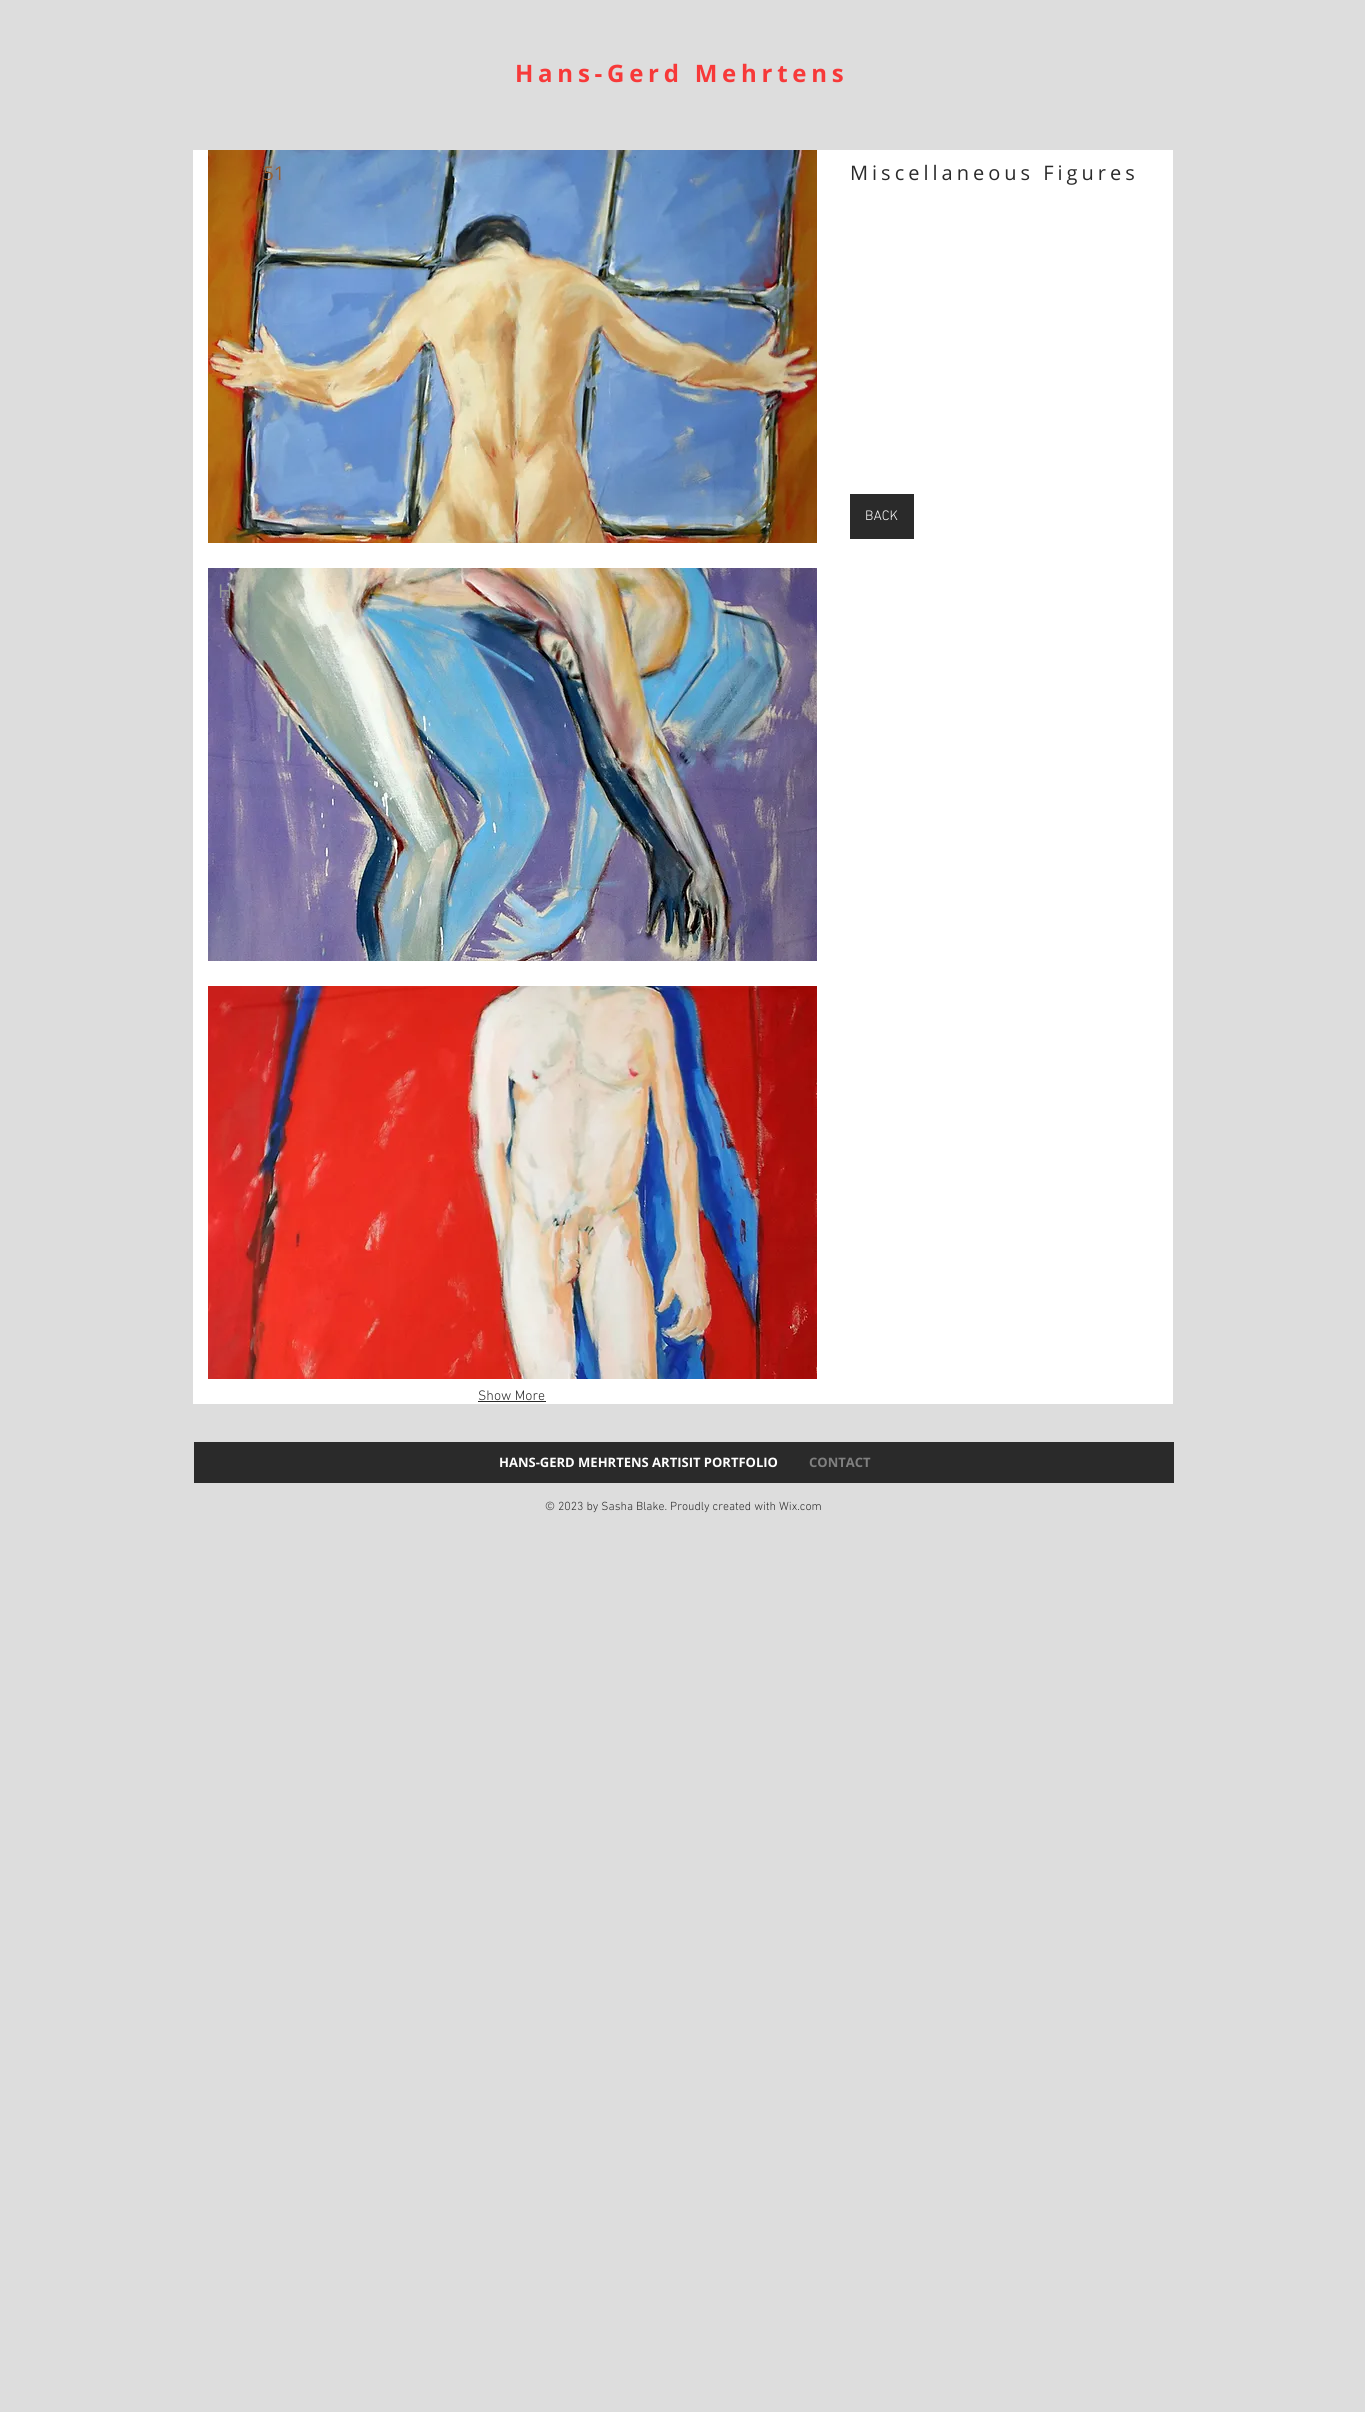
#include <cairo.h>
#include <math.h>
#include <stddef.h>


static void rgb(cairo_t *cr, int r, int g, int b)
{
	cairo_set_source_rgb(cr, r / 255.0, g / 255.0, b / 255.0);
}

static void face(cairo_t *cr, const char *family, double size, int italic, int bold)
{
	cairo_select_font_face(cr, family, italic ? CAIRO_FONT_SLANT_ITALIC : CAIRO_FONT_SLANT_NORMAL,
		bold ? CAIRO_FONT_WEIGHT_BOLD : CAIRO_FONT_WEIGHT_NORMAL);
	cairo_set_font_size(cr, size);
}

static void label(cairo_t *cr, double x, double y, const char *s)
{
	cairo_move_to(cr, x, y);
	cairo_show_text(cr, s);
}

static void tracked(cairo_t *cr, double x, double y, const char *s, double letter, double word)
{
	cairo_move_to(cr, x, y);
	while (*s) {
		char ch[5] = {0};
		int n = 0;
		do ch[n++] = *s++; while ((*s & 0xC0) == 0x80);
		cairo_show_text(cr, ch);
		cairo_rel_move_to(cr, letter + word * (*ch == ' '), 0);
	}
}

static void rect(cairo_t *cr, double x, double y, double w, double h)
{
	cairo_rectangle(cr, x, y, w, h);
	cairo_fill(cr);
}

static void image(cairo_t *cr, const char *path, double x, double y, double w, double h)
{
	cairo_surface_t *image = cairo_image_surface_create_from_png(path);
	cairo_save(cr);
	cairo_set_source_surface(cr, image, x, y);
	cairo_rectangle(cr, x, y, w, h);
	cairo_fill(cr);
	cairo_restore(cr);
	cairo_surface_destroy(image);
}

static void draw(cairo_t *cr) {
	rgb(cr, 221, 221, 221);
	cairo_paint(cr);
	face(cr, "Open Sans", 24, 0, 1);
	rgb(cr, 247, 57, 57);
	tracked(cr, 515, 82, "Hans-Gerd Mehrtens", 4.75, 0);
	rgb(cr, 255, 255, 255);
	rect(cr, 193, 150, 980, 1254);
	image(cr, "image0.png", 208, 150, 609, 393);
	face(cr, "Open Sans", 19, 0, 0);
	rgb(cr, 151, 96, 49);
	label(cr, 263, 180, "51");
	image(cr, "image1.png", 208, 568, 609, 393);
	rgb(cr, 147, 152, 149);
	label(cr, 218, 598, "H");
	image(cr, "image2.png", 208, 986, 609, 393);
	face(cr, "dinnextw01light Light", 14, 0, 0);
	rgb(cr, 42, 42, 42);
	label(cr, 478, 1400, "Show More");
	rect(cr, 478, 1401, 68, 1);
	face(cr, "Open Sans", 20, 0, 0);
	tracked(cr, 850, 180, "Miscellaneous Figures", 4, 0);
	rect(cr, 850, 494, 64, 45);
	face(cr, "dinnextw01light Light", 14, 0, 0);
	rgb(cr, 255, 255, 255);
	label(cr, 865, 520, "BACK");
	rgb(cr, 42, 42, 42);
	rect(cr, 194, 1442, 980, 41);
	face(cr, "Open Sans", 13, 0, 1);
	rgb(cr, 255, 255, 255);
	label(cr, 499, 1467, "HANS-GERD MEHRTENS ARTISIT PORTFOLIO");
	rgb(cr, 128, 128, 128);
	label(cr, 809, 1467, "CONTACT");
	face(cr, "dinnextw01light Light", 12, 0, 0);
	rgb(cr, 42, 42, 42);
	label(cr, 545, 1510, "© 2023 by Sasha Blake. Proudly created with Wix.com");
}

int main(void) {
	cairo_surface_t *surface = cairo_image_surface_create(CAIRO_FORMAT_RGB24, 1365, 2412);
	cairo_t *cr = cairo_create(surface);
	cairo_font_options_t *options = cairo_font_options_create();
	cairo_font_options_set_hint_metrics(options, CAIRO_HINT_METRICS_OFF);
	cairo_font_options_set_hint_style(options, CAIRO_HINT_STYLE_NONE);
	cairo_set_font_options(cr, options);
	cairo_set_miter_limit(cr, 4);
	draw(cr);
	cairo_surface_write_to_png(surface, "render.png");
	cairo_font_options_destroy(options);
	cairo_destroy(cr);
	cairo_surface_destroy(surface);
	return 0;
}
